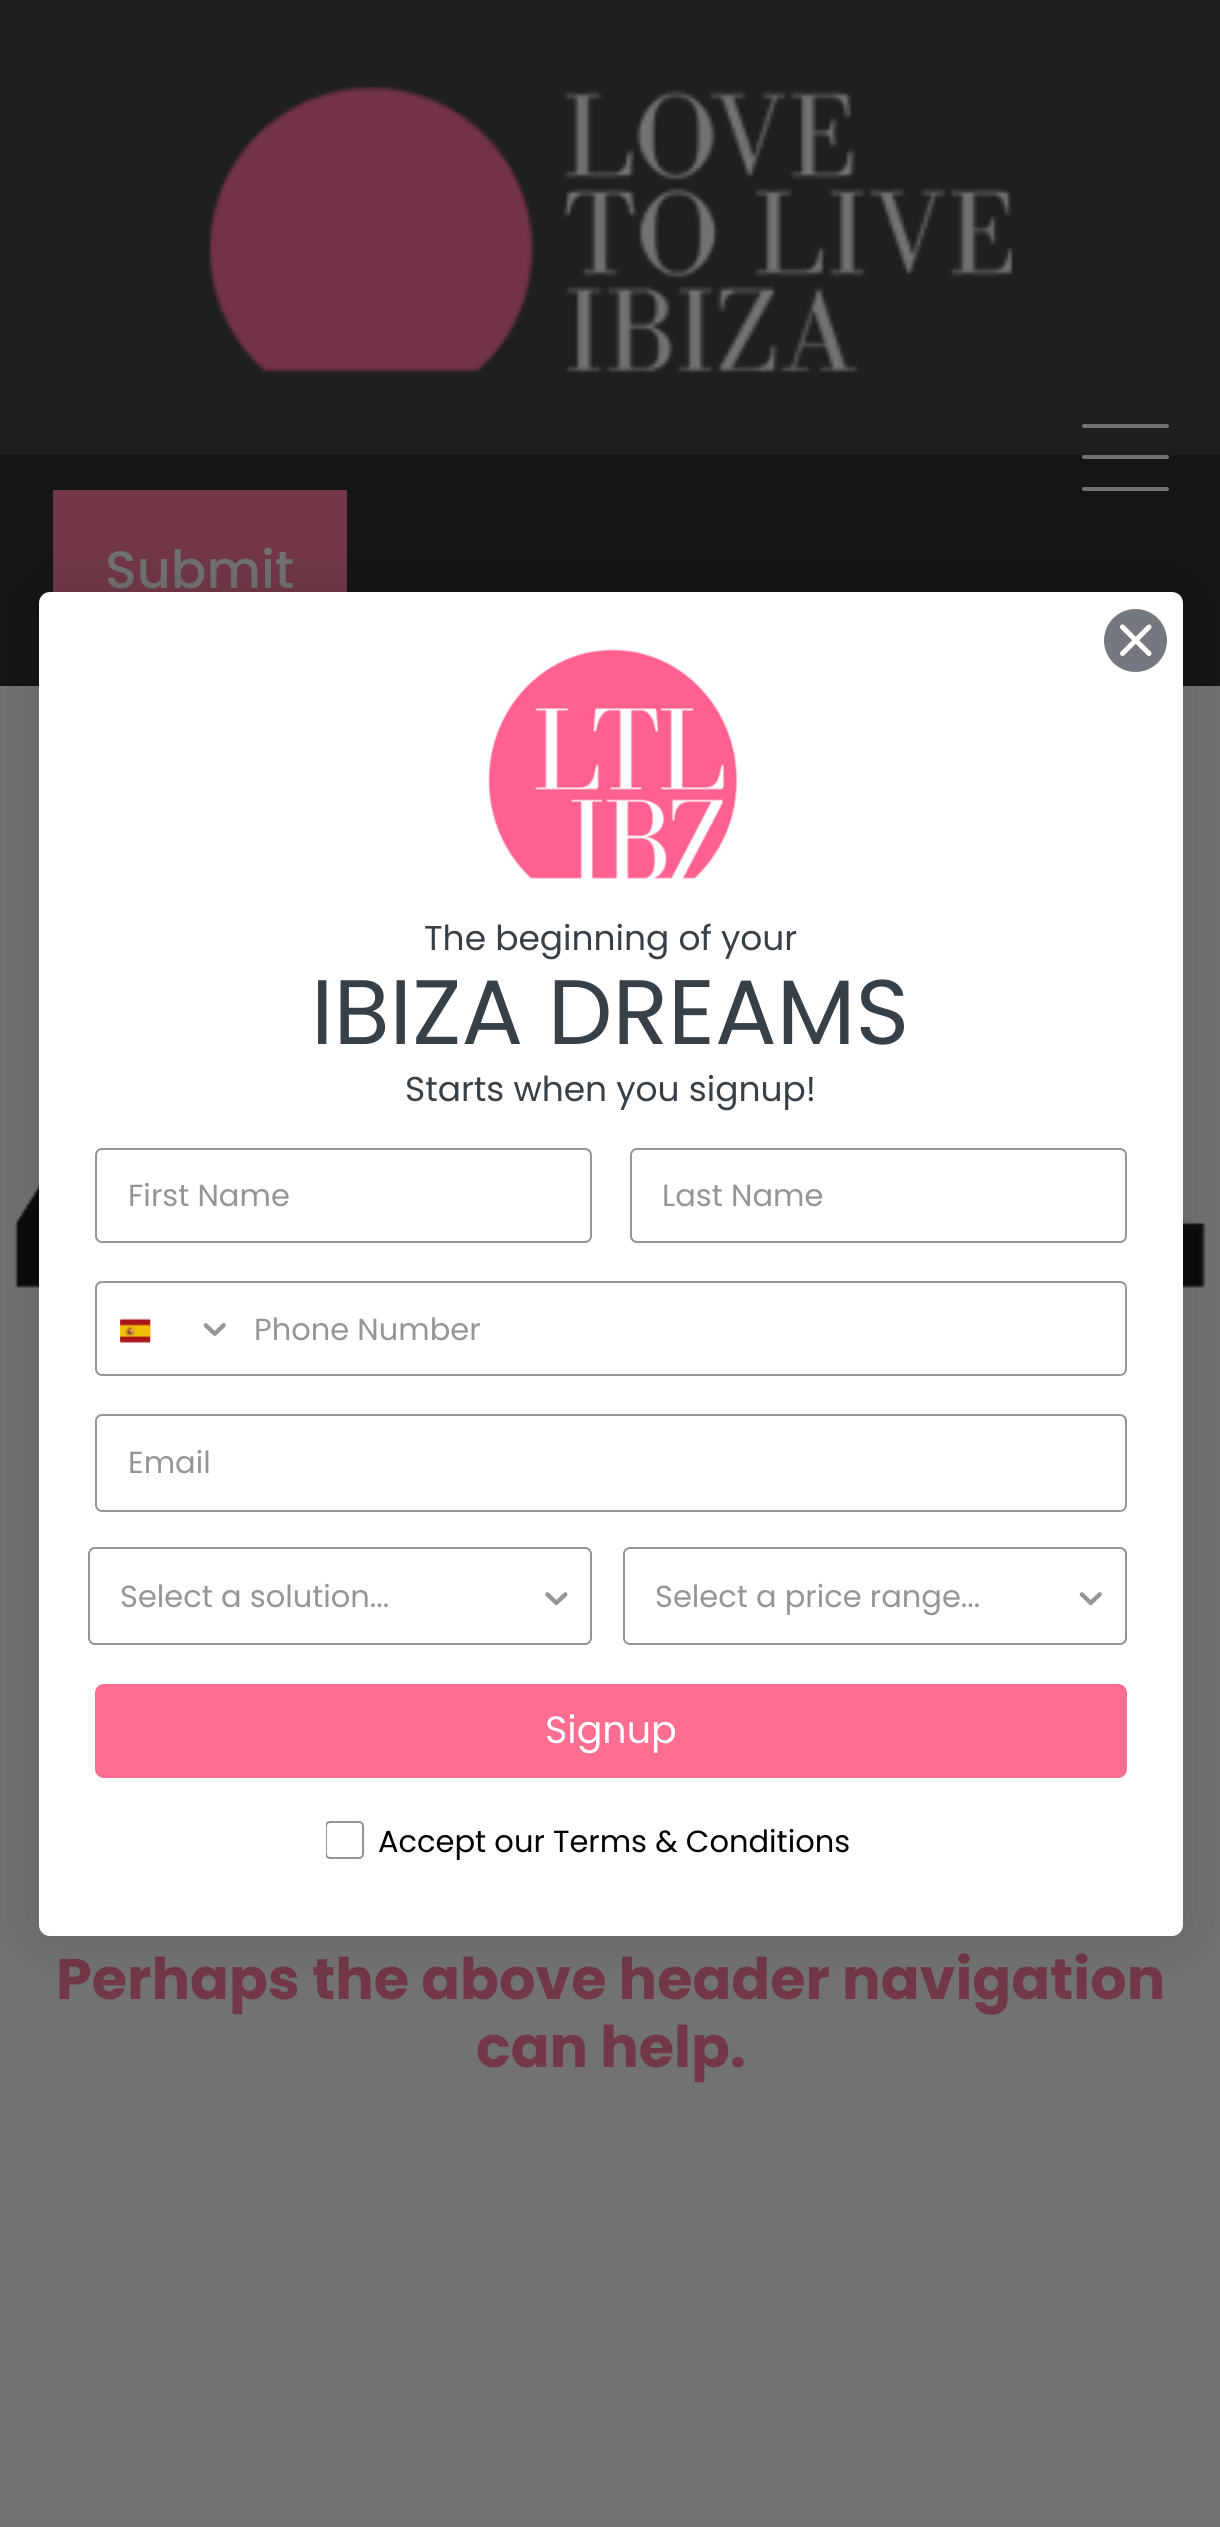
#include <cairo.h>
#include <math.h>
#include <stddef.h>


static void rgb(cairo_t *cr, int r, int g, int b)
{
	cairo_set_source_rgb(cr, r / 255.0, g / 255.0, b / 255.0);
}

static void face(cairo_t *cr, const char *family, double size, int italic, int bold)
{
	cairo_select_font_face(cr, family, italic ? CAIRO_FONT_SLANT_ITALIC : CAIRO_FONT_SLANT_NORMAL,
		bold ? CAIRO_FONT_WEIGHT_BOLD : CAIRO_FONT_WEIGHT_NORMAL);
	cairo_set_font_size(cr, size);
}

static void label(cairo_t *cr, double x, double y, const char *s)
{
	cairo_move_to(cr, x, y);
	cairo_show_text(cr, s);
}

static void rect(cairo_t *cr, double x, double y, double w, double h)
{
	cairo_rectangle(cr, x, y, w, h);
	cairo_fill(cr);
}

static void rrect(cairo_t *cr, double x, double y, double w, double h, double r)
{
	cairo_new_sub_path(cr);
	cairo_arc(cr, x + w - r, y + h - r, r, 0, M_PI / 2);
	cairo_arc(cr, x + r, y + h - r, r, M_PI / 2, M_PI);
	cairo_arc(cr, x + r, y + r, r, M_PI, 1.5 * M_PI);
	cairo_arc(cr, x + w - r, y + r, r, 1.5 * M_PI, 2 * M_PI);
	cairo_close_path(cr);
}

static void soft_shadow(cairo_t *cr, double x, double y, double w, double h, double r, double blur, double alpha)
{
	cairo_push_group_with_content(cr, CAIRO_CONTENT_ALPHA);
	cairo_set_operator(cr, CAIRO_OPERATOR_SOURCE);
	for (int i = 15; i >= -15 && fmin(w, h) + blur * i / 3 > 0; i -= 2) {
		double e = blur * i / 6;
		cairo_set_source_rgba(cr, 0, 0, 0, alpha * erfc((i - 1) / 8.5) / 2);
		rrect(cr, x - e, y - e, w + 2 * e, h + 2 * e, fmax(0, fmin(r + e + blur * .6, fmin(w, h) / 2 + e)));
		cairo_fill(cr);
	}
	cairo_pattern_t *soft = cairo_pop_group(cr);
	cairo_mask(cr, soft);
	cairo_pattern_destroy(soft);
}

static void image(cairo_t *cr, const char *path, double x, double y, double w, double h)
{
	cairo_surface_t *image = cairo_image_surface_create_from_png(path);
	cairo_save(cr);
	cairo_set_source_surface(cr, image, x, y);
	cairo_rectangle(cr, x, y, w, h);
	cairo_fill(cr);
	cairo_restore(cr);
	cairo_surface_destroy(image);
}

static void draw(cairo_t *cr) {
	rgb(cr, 114, 114, 114);
	cairo_paint(cr);
	rgb(cr, 31, 31, 31);
	rect(cr, 0, 0, 1220, 455);
	image(cr, "image0.png", 208, 86, 805, 287);
	rgb(cr, 22, 22, 22);
	rect(cr, 0, 455, 1220, 231);
	rgb(cr, 114, 114, 114);
	rrect(cr, 1082, 455, 87, 4, 2);
	cairo_fill(cr);
	rrect(cr, 1082, 424, 87, 4, 2);
	cairo_fill(cr);
	rrect(cr, 1082, 487, 87, 4, 2);
	cairo_fill(cr);
	rgb(cr, 114, 56, 70);
	rect(cr, 53, 490, 294, 102);
	face(cr, "Poppins Medium", 52.5, 0, 0);
	rgb(cr, 114, 114, 114);
	label(cr, 105, 588, "Submit");
	image(cr, "image1.png", 14, 1182, 1192, 106);
	face(cr, "Poppins", 57.25, 0, 1);
	rgb(cr, 114, 56, 70);
	label(cr, 56, 1999, "Perhaps the above header navigation");
	label(cr, 476, 2067, "can help.");
	rgb(cr, 0, 0, 0);
	soft_shadow(cr, 39, 592, 1144, 1344, 11, 28.5, 0.15);
	rgb(cr, 255, 255, 255);
	rrect(cr, 39, 592, 1144, 1344, 11);
	cairo_fill(cr);
	rgb(cr, 115, 121, 126);
	cairo_arc(cr, 1135.5, 640.5, 31.5, 0, 2 * M_PI);
	cairo_fill(cr);
	cairo_new_path(cr);
	cairo_move_to(cr, 1122.5, 627);
	cairo_line_to(cr, 1149, 653.5);
	cairo_move_to(cr, 1122.5, 653.5);
	cairo_line_to(cr, 1149, 627);
	cairo_close_path(cr);
	rgb(cr, 255, 255, 255);
	cairo_set_line_width(cr, 5);
	cairo_set_line_cap(cr, CAIRO_LINE_CAP_ROUND);
	cairo_set_line_join(cr, CAIRO_LINE_JOIN_ROUND);
	cairo_stroke(cr);
	image(cr, "image2.png", 488, 649, 250, 230);
	face(cr, "Poppins", 34.4, 0, 0);
	rgb(cr, 55, 63, 71);
	label(cr, 424, 950, "The beginning of your");
	face(cr, "Poppins", 91.5, 0, 0);
	label(cr, 311, 1044, "IBIZA DREAMS");
	face(cr, "Poppins", 34.4, 0, 0);
	label(cr, 405, 1101, "Starts when you signup!");
	rrect(cr, 96, 1149, 495, 93, 6);
	rgb(cr, 148, 149, 150);
	cairo_set_line_width(cr, 2);
	cairo_set_line_cap(cr, CAIRO_LINE_CAP_BUTT);
	cairo_set_line_join(cr, CAIRO_LINE_JOIN_MITER);
	cairo_stroke(cr);
	face(cr, "Poppins", 30.5, 0, 0);
	label(cr, 128, 1206, "First Name");
	rrect(cr, 631, 1149, 495, 93, 6);
	cairo_stroke(cr);
	label(cr, 662, 1206, "Last Name");
	rrect(cr, 96, 1282, 1030, 93, 6);
	cairo_stroke(cr);
	image(cr, "image3.png", 120, 1318, 32, 25);
	image(cr, "image4.png", 203, 1323, 23, 13);
	label(cr, 254, 1340, "Phone Number");
	rrect(cr, 96, 1415, 1030, 96, 6);
	cairo_stroke(cr);
	label(cr, 128, 1473, "Email");
	rrect(cr, 89, 1548, 502, 96, 6);
	cairo_stroke(cr);
	label(cr, 120, 1607, "Select a solution...");
	image(cr, "image5.png", 545, 1592, 23, 14);
	rrect(cr, 624, 1548, 502, 96, 6);
	cairo_stroke(cr);
	label(cr, 655, 1607, "Select a price range...");
	image(cr, "image6.png", 1079, 1592, 23, 14);
	rgb(cr, 255, 110, 145);
	rrect(cr, 95, 1684, 1032, 94, 9);
	cairo_fill(cr);
	face(cr, "Poppins", 38, 0, 0);
	rgb(cr, 255, 255, 255);
	label(cr, 545, 1743, "Signup");
	cairo_save(cr);
	cairo_rectangle(cr, 326, 1820, 38, 39);
	cairo_clip(cr);
	rrect(cr, 326, 1822, 37, 36, 4);
	rgb(cr, 148, 149, 150);
	cairo_stroke(cr);
	cairo_restore(cr);
	face(cr, "Poppins", 30.5, 0, 0);
	rgb(cr, 0, 0, 0);
	label(cr, 378, 1852, "Accept our Terms & Conditions");
}

int main(void) {
	cairo_surface_t *surface = cairo_image_surface_create(CAIRO_FORMAT_RGB24, 1220, 2527);
	cairo_t *cr = cairo_create(surface);
	cairo_font_options_t *options = cairo_font_options_create();
	cairo_font_options_set_hint_metrics(options, CAIRO_HINT_METRICS_OFF);
	cairo_font_options_set_hint_style(options, CAIRO_HINT_STYLE_NONE);
	cairo_set_font_options(cr, options);
	cairo_set_miter_limit(cr, 4);
	draw(cr);
	cairo_surface_write_to_png(surface, "render.png");
	cairo_font_options_destroy(options);
	cairo_destroy(cr);
	cairo_surface_destroy(surface);
	return 0;
}
